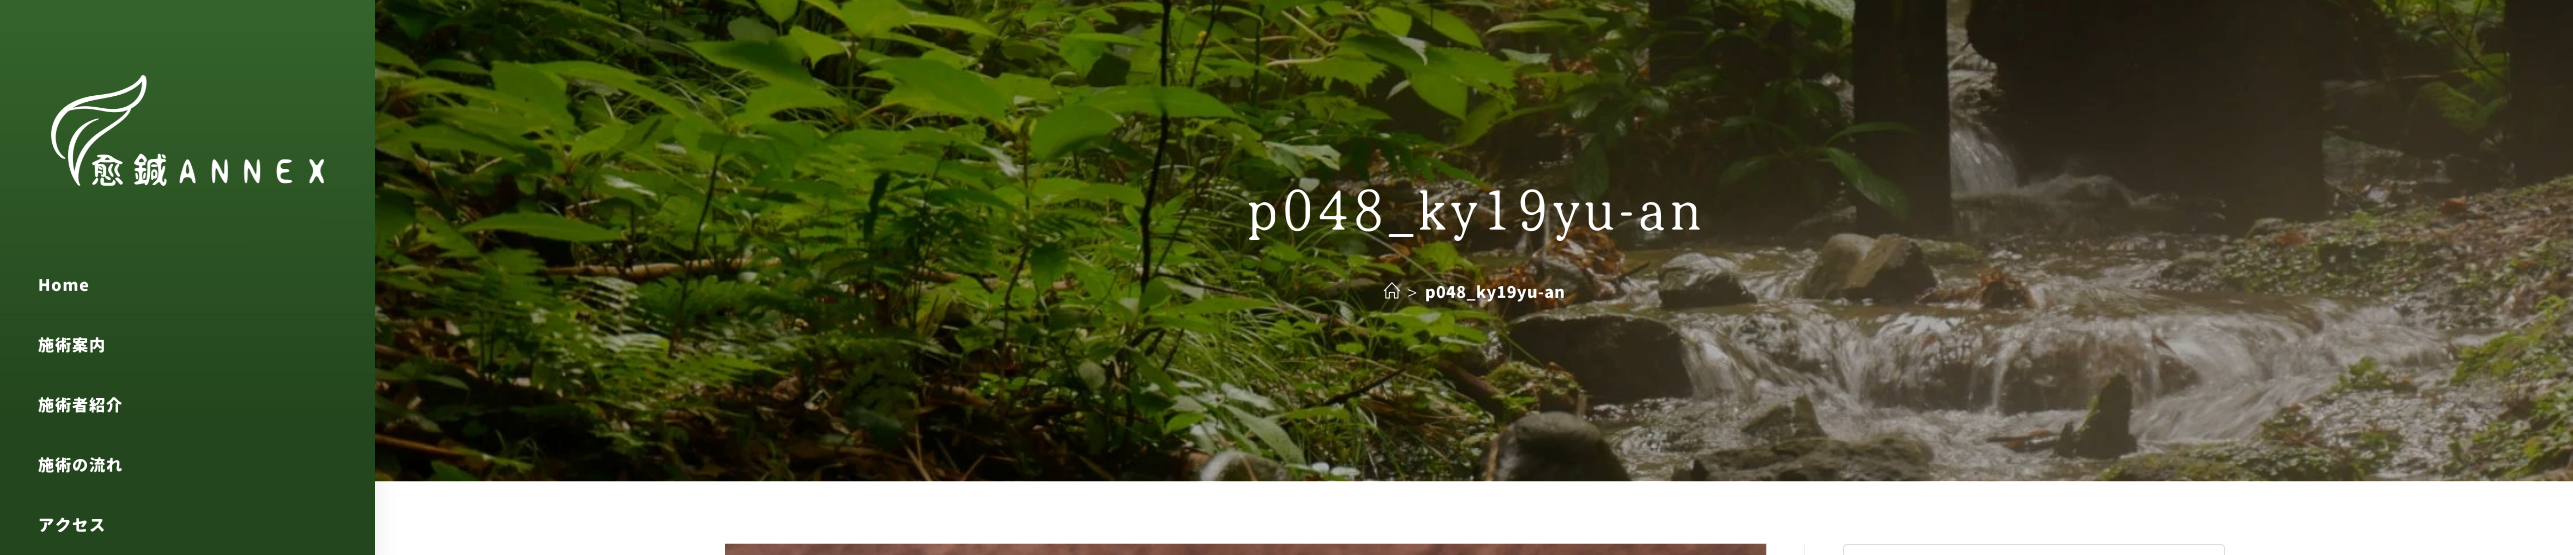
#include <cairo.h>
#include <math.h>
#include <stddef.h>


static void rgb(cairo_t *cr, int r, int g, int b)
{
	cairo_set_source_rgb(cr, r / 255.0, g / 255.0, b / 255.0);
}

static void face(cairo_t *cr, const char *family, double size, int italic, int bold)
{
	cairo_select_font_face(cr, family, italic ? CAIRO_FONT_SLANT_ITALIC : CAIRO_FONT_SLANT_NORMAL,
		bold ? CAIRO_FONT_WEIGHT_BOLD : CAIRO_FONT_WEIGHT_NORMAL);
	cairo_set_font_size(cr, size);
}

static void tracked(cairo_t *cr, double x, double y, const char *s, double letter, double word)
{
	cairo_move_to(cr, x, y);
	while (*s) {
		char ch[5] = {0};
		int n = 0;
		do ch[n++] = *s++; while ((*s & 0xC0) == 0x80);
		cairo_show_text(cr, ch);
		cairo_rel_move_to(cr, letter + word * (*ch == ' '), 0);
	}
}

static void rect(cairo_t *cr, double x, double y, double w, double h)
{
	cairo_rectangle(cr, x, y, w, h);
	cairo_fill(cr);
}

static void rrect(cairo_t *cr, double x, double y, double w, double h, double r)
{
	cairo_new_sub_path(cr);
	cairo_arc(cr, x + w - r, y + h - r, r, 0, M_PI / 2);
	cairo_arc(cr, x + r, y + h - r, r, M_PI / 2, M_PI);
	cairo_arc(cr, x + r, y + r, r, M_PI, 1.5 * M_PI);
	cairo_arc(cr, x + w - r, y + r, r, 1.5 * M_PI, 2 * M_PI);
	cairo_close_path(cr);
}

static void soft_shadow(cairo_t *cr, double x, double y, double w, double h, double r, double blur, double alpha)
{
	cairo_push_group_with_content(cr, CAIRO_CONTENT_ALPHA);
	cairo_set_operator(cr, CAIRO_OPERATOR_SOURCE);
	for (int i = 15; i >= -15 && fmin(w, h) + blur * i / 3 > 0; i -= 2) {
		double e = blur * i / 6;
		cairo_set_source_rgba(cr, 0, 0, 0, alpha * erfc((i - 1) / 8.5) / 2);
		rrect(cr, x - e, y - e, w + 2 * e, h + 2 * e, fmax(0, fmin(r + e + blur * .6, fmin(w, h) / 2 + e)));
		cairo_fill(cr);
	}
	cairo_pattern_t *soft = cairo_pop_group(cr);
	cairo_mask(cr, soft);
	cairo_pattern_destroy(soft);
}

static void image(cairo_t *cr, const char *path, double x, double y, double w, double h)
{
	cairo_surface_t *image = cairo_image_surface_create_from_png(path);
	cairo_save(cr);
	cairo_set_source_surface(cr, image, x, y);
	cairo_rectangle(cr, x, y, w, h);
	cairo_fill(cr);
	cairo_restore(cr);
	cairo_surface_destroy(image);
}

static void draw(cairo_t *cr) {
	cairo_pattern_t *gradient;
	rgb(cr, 255, 255, 255);
	cairo_paint(cr);
	image(cr, "image0.png", 375, 0, 2198, 482);
	face(cr, "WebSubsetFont", 55, 0, 0);
	rgb(cr, 255, 255, 255);
	tracked(cr, 1245, 230, "p048_ky19yu-an", 0.25, 0);
	image(cr, "image1.png", 1383, 282, 17, 17);
	face(cr, "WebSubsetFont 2", 16.25, 0, 0);
	tracked(cr, 1407, 298, ">", 0.25, 0);
	face(cr, "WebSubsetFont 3", 16.25, 0, 0);
	tracked(cr, 1425, 298, "p048_ky19yu-an", 0.25, 0);
	rgb(cr, 241, 241, 241);
	rect(cr, 1804, 544, 1, 11);
	image(cr, "image2.png", 725, 543, 1042, 12);
	rrect(cr, 1843.5, 544.5, 381, 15, 3.5);
	rgb(cr, 221, 221, 221);
	cairo_set_line_width(cr, 1);
	cairo_stroke(cr);
	rgb(cr, 0, 0, 0);
	soft_shadow(cr, 0, 0, 375, 555, 0, 12.5, 0.1);
	gradient = cairo_pattern_create_linear(187, 0, 188, 555);
	cairo_pattern_add_color_stop_rgba(gradient, 0, 0.204, 0.392, 0.169, 1);
	cairo_pattern_add_color_stop_rgba(gradient, 0.75, 0.141, 0.275, 0.118, 1);
	cairo_pattern_add_color_stop_rgba(gradient, 1, 0.141, 0.275, 0.118, 1);
	cairo_set_source(cr, gradient);
	cairo_pattern_destroy(gradient);
	rect(cr, 0, 0, 375, 554);
	image(cr, "image3.png", 51, 75, 273, 111);
	rgb(cr, 38, 73, 31);
	rect(cr, 0, 314, 375, 1);
	rgb(cr, 255, 255, 255);
	tracked(cr, 38, 291, "Home", 0.75, 0);
	rgb(cr, 36, 69, 29);
	rect(cr, 0, 374, 375, 1);
	rgb(cr, 255, 255, 255);
	tracked(cr, 38, 351, "施術案内", 0.75, 0);
	rgb(cr, 34, 67, 29);
	rect(cr, 0, 434, 375, 1);
	rgb(cr, 255, 255, 255);
	tracked(cr, 38, 411, "施術者紹介", 0.75, 0);
	rgb(cr, 34, 67, 29);
	rect(cr, 0, 494, 375, 1);
	rgb(cr, 255, 255, 255);
	tracked(cr, 38, 471, "施術の流れ", 0.75, 0);
	rgb(cr, 34, 67, 29);
	rect(cr, 0, 554, 375, 1);
	rgb(cr, 255, 255, 255);
	tracked(cr, 38, 531, "アクセス", 0.75, 0);
}

int main(void) {
	cairo_surface_t *surface = cairo_image_surface_create(CAIRO_FORMAT_RGB24, 2573, 555);
	cairo_t *cr = cairo_create(surface);
	cairo_font_options_t *options = cairo_font_options_create();
	cairo_font_options_set_hint_metrics(options, CAIRO_HINT_METRICS_OFF);
	cairo_font_options_set_hint_style(options, CAIRO_HINT_STYLE_NONE);
	cairo_set_font_options(cr, options);
	cairo_set_miter_limit(cr, 4);
	draw(cr);
	cairo_surface_write_to_png(surface, "render.png");
	cairo_font_options_destroy(options);
	cairo_destroy(cr);
	cairo_surface_destroy(surface);
	return 0;
}
